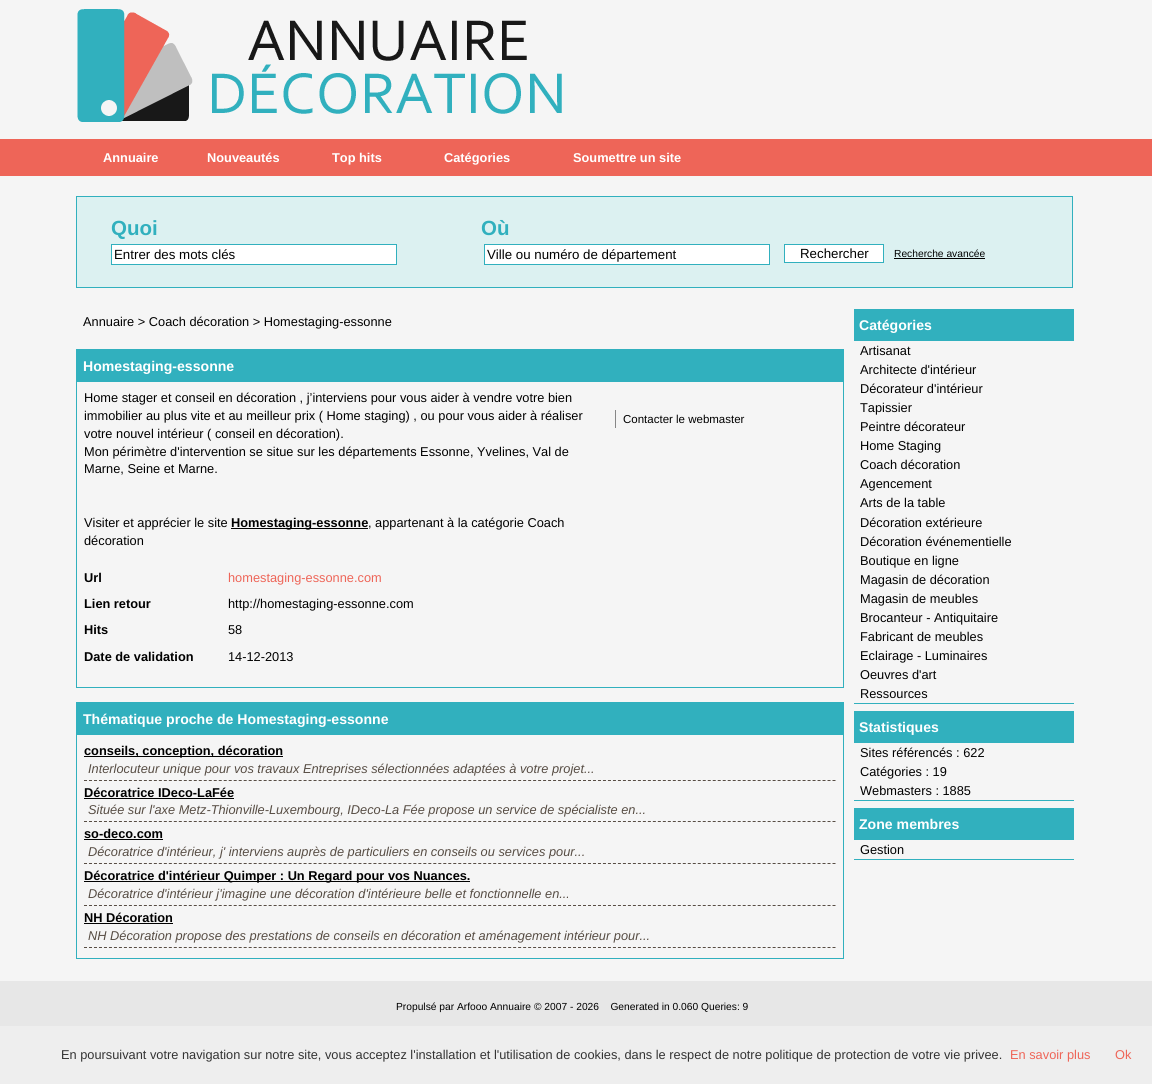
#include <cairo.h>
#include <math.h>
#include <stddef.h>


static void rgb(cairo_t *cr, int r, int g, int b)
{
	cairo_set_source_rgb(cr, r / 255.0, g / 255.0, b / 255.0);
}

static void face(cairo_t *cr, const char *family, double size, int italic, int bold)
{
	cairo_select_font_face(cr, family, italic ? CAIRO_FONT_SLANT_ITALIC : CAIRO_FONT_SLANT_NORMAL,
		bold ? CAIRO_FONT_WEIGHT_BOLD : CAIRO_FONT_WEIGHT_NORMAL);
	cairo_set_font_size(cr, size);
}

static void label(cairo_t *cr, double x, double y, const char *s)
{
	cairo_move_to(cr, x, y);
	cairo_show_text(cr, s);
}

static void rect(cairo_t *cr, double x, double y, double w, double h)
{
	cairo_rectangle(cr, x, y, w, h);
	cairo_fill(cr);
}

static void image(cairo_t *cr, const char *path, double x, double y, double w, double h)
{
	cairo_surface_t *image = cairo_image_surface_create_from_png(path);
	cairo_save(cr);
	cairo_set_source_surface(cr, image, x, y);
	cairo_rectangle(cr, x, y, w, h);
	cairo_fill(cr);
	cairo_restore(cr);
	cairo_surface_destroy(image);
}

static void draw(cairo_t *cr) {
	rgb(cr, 245, 245, 245);
	cairo_paint(cr);
	rgb(cr, 238, 101, 88);
	rect(cr, 0, 139, 1152, 37);
	image(cr, "image0.png", 76, 0, 1000, 139);
	face(cr, "Liberation Sans", 12.8, 0, 1);
	rgb(cr, 255, 255, 255);
	label(cr, 103, 162, "Annuaire");
	label(cr, 207, 162, "Nouveautés");
	label(cr, 332, 162, "Top hits");
	label(cr, 444, 162, "Catégories");
	label(cr, 573, 162, "Soumettre un site");
	rgb(cr, 220, 241, 241);
	cairo_rectangle(cr, 76.5, 196.5, 996, 91);
	cairo_fill_preserve(cr);
	rgb(cr, 49, 176, 190);
	cairo_set_line_width(cr, 1);
	cairo_stroke(cr);
	face(cr, "Liberation Sans", 20.5, 0, 1);
	label(cr, 111, 235, "Quoi");
	label(cr, 481, 235, "Où");
	rgb(cr, 255, 255, 255);
	cairo_rectangle(cr, 111.5, 244.5, 285, 20);
	cairo_fill_preserve(cr);
	rgb(cr, 49, 176, 190);
	cairo_stroke(cr);
	face(cr, "Liberation Sans", 13.3, 0, 0);
	rgb(cr, 0, 0, 0);
	label(cr, 114, 259, "Entrer des mots clés");
	rgb(cr, 255, 255, 255);
	cairo_rectangle(cr, 484.5, 244.5, 285, 20);
	cairo_fill_preserve(cr);
	rgb(cr, 49, 176, 190);
	cairo_stroke(cr);
	rgb(cr, 0, 0, 0);
	label(cr, 487, 259, "Ville ou numéro de département");
	rgb(cr, 255, 255, 255);
	cairo_rectangle(cr, 784.5, 244.5, 99, 18);
	cairo_fill_preserve(cr);
	rgb(cr, 49, 176, 190);
	cairo_stroke(cr);
	rgb(cr, 0, 0, 0);
	label(cr, 800, 258, "Rechercher");
	face(cr, "Liberation Sans", 10.25, 0, 0);
	label(cr, 894, 257, "Recherche avancée");
	rect(cr, 894, 258, 91, 1);
	face(cr, "Liberation Sans", 12.8, 0, 0);
	label(cr, 83, 326, "Annuaire > Coach décoration > Homestaging-essonne");
	rgb(cr, 49, 176, 190);
	rect(cr, 76, 349, 768, 32);
	face(cr, "Liberation Sans", 14.1, 0, 1);
	rgb(cr, 255, 255, 255);
	label(cr, 83, 371, "Homestaging-essonne");
	cairo_rectangle(cr, 76.5, 381.5, 767, 306);
	rgb(cr, 49, 176, 190);
	cairo_stroke(cr);
	face(cr, "Liberation Sans", 12.8, 0, 0);
	rgb(cr, 0, 0, 0);
	label(cr, 84, 402, "Home stager et conseil en décoration , j’interviens pour vous aider à vendre votre bien");
	label(cr, 84, 420, "immobilier au plus vite et au meilleur prix ( Home staging) , ou pour vous aider à réaliser");
	label(cr, 84, 438, "votre nouvel intérieur ( conseil en décoration).");
	label(cr, 84, 456, "Mon périmètre d'intervention se situe sur les départements Essonne, Yvelines, Val de");
	label(cr, 84, 473, "Marne, Seine et Marne.");
	label(cr, 84, 527, "Visiter et apprécier le site");
	rect(cr, 231, 528, 137, 1);
	face(cr, "Liberation Sans", 12.8, 0, 1);
	label(cr, 231, 527, "Homestaging-essonne");
	face(cr, "Liberation Sans", 12.8, 0, 0);
	label(cr, 368, 527, ", appartenant à la catégorie Coach");
	label(cr, 84, 545, "décoration");
	face(cr, "Liberation Sans", 12.8, 0, 1);
	label(cr, 84, 582, "Url");
	face(cr, "Liberation Sans", 12.8, 0, 0);
	rgb(cr, 238, 101, 88);
	label(cr, 228, 582, "homestaging-essonne.com");
	face(cr, "Liberation Sans", 12.8, 0, 1);
	rgb(cr, 0, 0, 0);
	label(cr, 84, 608, "Lien retour");
	face(cr, "Liberation Sans", 12.8, 0, 0);
	label(cr, 228, 608, "http://homestaging-essonne.com");
	face(cr, "Liberation Sans", 12.8, 0, 1);
	label(cr, 84, 634, "Hits");
	face(cr, "Liberation Sans", 12.8, 0, 0);
	label(cr, 228, 634, "58");
	face(cr, "Liberation Sans", 12.8, 0, 1);
	label(cr, 84, 661, "Date de validation");
	face(cr, "Liberation Sans", 12.8, 0, 0);
	label(cr, 228, 661, "14-12-2013");
	rgb(cr, 135, 135, 135);
	rect(cr, 615, 410, 1, 18);
	face(cr, "Liberation Sans", 11.5, 0, 0);
	rgb(cr, 0, 0, 0);
	label(cr, 623, 423, "Contacter le webmaster");
	rgb(cr, 49, 176, 190);
	rect(cr, 76, 702, 768, 32);
	face(cr, "Liberation Sans", 14.1, 0, 1);
	rgb(cr, 255, 255, 255);
	label(cr, 83, 724, "Thématique proche de Homestaging-essonne");
	cairo_rectangle(cr, 76.5, 734.5, 767, 224);
	rgb(cr, 49, 176, 190);
	cairo_stroke(cr);
	cairo_new_path(cr);
	cairo_move_to(cr, 84, 780.5);
	cairo_line_to(cr, 836, 780.5);
	rgb(cr, 87, 77, 68);
	cairo_set_dash(cr, (double[]){3, 1.99}, 2, 0);
	cairo_stroke(cr);
	rgb(cr, 0, 0, 0);
	rect(cr, 84, 756, 199, 1);
	face(cr, "Liberation Sans", 12.8, 0, 1);
	label(cr, 84, 755, "conseils, conception, décoration");
	face(cr, "Liberation Sans", 12.8, 1, 0);
	rgb(cr, 87, 77, 68);
	label(cr, 88, 773, "Interlocuteur unique pour vos travaux Entreprises sélectionnées adaptées à votre projet...");
	cairo_new_path(cr);
	cairo_move_to(cr, 84, 821.5);
	cairo_line_to(cr, 836, 821.5);
	cairo_stroke(cr);
	face(cr, "Liberation Sans", 12.8, 0, 1);
	rgb(cr, 0, 0, 0);
	label(cr, 84, 797, "Décoratrice IDeco-LaFée");
	rect(cr, 84, 798, 150, 1);
	face(cr, "Liberation Sans", 12.8, 1, 0);
	rgb(cr, 87, 77, 68);
	label(cr, 88, 814, "Située sur l'axe Metz-Thionville-Luxembourg, IDeco-La Fée propose un service de spécialiste en...");
	cairo_new_path(cr);
	cairo_move_to(cr, 84, 863.5);
	cairo_line_to(cr, 836, 863.5);
	cairo_stroke(cr);
	face(cr, "Liberation Sans", 12.8, 0, 1);
	rgb(cr, 0, 0, 0);
	label(cr, 84, 838, "so-deco.com");
	rect(cr, 84, 839, 79, 1);
	face(cr, "Liberation Sans", 12.8, 1, 0);
	rgb(cr, 87, 77, 68);
	label(cr, 88, 856, "Décoratrice d'intérieur, j' interviens auprès de particuliers en conseils ou services pour...");
	cairo_new_path(cr);
	cairo_move_to(cr, 84, 905.5);
	cairo_line_to(cr, 836, 905.5);
	cairo_stroke(cr);
	rgb(cr, 0, 0, 0);
	rect(cr, 84, 881, 386, 1);
	face(cr, "Liberation Sans", 12.8, 0, 1);
	label(cr, 84, 880, "Décoratrice d'intérieur Quimper : Un Regard pour vos Nuances.");
	face(cr, "Liberation Sans", 12.8, 1, 0);
	rgb(cr, 87, 77, 68);
	label(cr, 88, 898, "Décoratrice d'intérieur j'imagine une décoration d'intérieure belle et fonctionnelle en...");
	cairo_new_path(cr);
	cairo_move_to(cr, 84, 947.5);
	cairo_line_to(cr, 836, 947.5);
	cairo_stroke(cr);
	face(cr, "Liberation Sans", 12.8, 0, 1);
	rgb(cr, 0, 0, 0);
	label(cr, 84, 922, "NH Décoration");
	rect(cr, 84, 923, 89, 1);
	face(cr, "Liberation Sans", 12.8, 1, 0);
	rgb(cr, 87, 77, 68);
	label(cr, 88, 940, "NH Décoration propose des prestations de conseils en décoration et aménagement intérieur pour...");
	rgb(cr, 49, 176, 190);
	rect(cr, 854, 309, 220, 32);
	face(cr, "Liberation Sans", 14.1, 0, 1);
	rgb(cr, 255, 255, 255);
	label(cr, 859, 330, "Catégories");
	face(cr, "Liberation Sans", 12.8, 0, 0);
	rgb(cr, 0, 0, 0);
	label(cr, 860, 355, "Artisanat");
	label(cr, 860, 374, "Architecte d'intérieur");
	label(cr, 860, 393, "Décorateur d'intérieur");
	label(cr, 860, 412, "Tapissier");
	label(cr, 860, 431, "Peintre décorateur");
	label(cr, 860, 450, "Home Staging");
	label(cr, 860, 469, "Coach décoration");
	label(cr, 860, 488, "Agencement");
	label(cr, 860, 507, "Arts de la table");
	label(cr, 860, 527, "Décoration extérieure");
	label(cr, 860, 546, "Décoration événementielle");
	label(cr, 860, 565, "Boutique en ligne");
	label(cr, 860, 584, "Magasin de décoration");
	label(cr, 860, 603, "Magasin de meubles");
	label(cr, 860, 622, "Brocanteur - Antiquitaire");
	label(cr, 860, 641, "Fabricant de meubles");
	label(cr, 860, 660, "Eclairage - Luminaires");
	label(cr, 860, 679, "Oeuvres d'art");
	label(cr, 860, 698, "Ressources");
	rgb(cr, 49, 176, 190);
	rect(cr, 854, 703, 220, 1);
	rect(cr, 854, 711, 220, 32);
	face(cr, "Liberation Sans", 14.1, 0, 1);
	rgb(cr, 255, 255, 255);
	label(cr, 859, 732, "Statistiques");
	face(cr, "Liberation Sans", 12.8, 0, 0);
	rgb(cr, 0, 0, 0);
	label(cr, 860, 757, "Sites référencés : 622");
	label(cr, 860, 776, "Catégories : 19");
	label(cr, 860, 795, "Webmasters : 1885");
	rgb(cr, 49, 176, 190);
	rect(cr, 854, 800, 220, 1);
	rect(cr, 854, 808, 220, 32);
	face(cr, "Liberation Sans", 14.1, 0, 1);
	rgb(cr, 255, 255, 255);
	label(cr, 859, 829, "Zone membres");
	face(cr, "Liberation Sans", 12.8, 0, 0);
	rgb(cr, 0, 0, 0);
	label(cr, 860, 854, "Gestion");
	rgb(cr, 49, 176, 190);
	rect(cr, 854, 859, 220, 1);
	rgb(cr, 231, 231, 231);
	rect(cr, 0, 981, 1152, 45);
	face(cr, "Liberation Sans", 10.25, 0, 0);
	rgb(cr, 0, 0, 0);
	label(cr, 396, 1010, "Propulsé par Arfooo Annuaire © 2007 - 2026    Generated in 0.060 Queries: 9");
	rgb(cr, 238, 238, 238);
	rect(cr, 0, 1026, 1152, 58);
	face(cr, "Liberation Sans", 12.8, 0, 0);
	rgb(cr, 51, 51, 51);
	label(cr, 61, 1059, "En poursuivant votre navigation sur notre site, vous acceptez l'installation et l'utilisation de cookies, dans le respect de notre politique de protection de votre vie privee.");
	rgb(cr, 238, 101, 88);
	label(cr, 1010, 1059, "En savoir plus");
	label(cr, 1115, 1059, "Ok");
}

int main(void) {
	cairo_surface_t *surface = cairo_image_surface_create(CAIRO_FORMAT_RGB24, 1152, 1084);
	cairo_t *cr = cairo_create(surface);
	cairo_font_options_t *options = cairo_font_options_create();
	cairo_font_options_set_hint_metrics(options, CAIRO_HINT_METRICS_OFF);
	cairo_font_options_set_hint_style(options, CAIRO_HINT_STYLE_NONE);
	cairo_set_font_options(cr, options);
	cairo_set_miter_limit(cr, 4);
	draw(cr);
	cairo_surface_write_to_png(surface, "render.png");
	cairo_font_options_destroy(options);
	cairo_destroy(cr);
	cairo_surface_destroy(surface);
	return 0;
}
